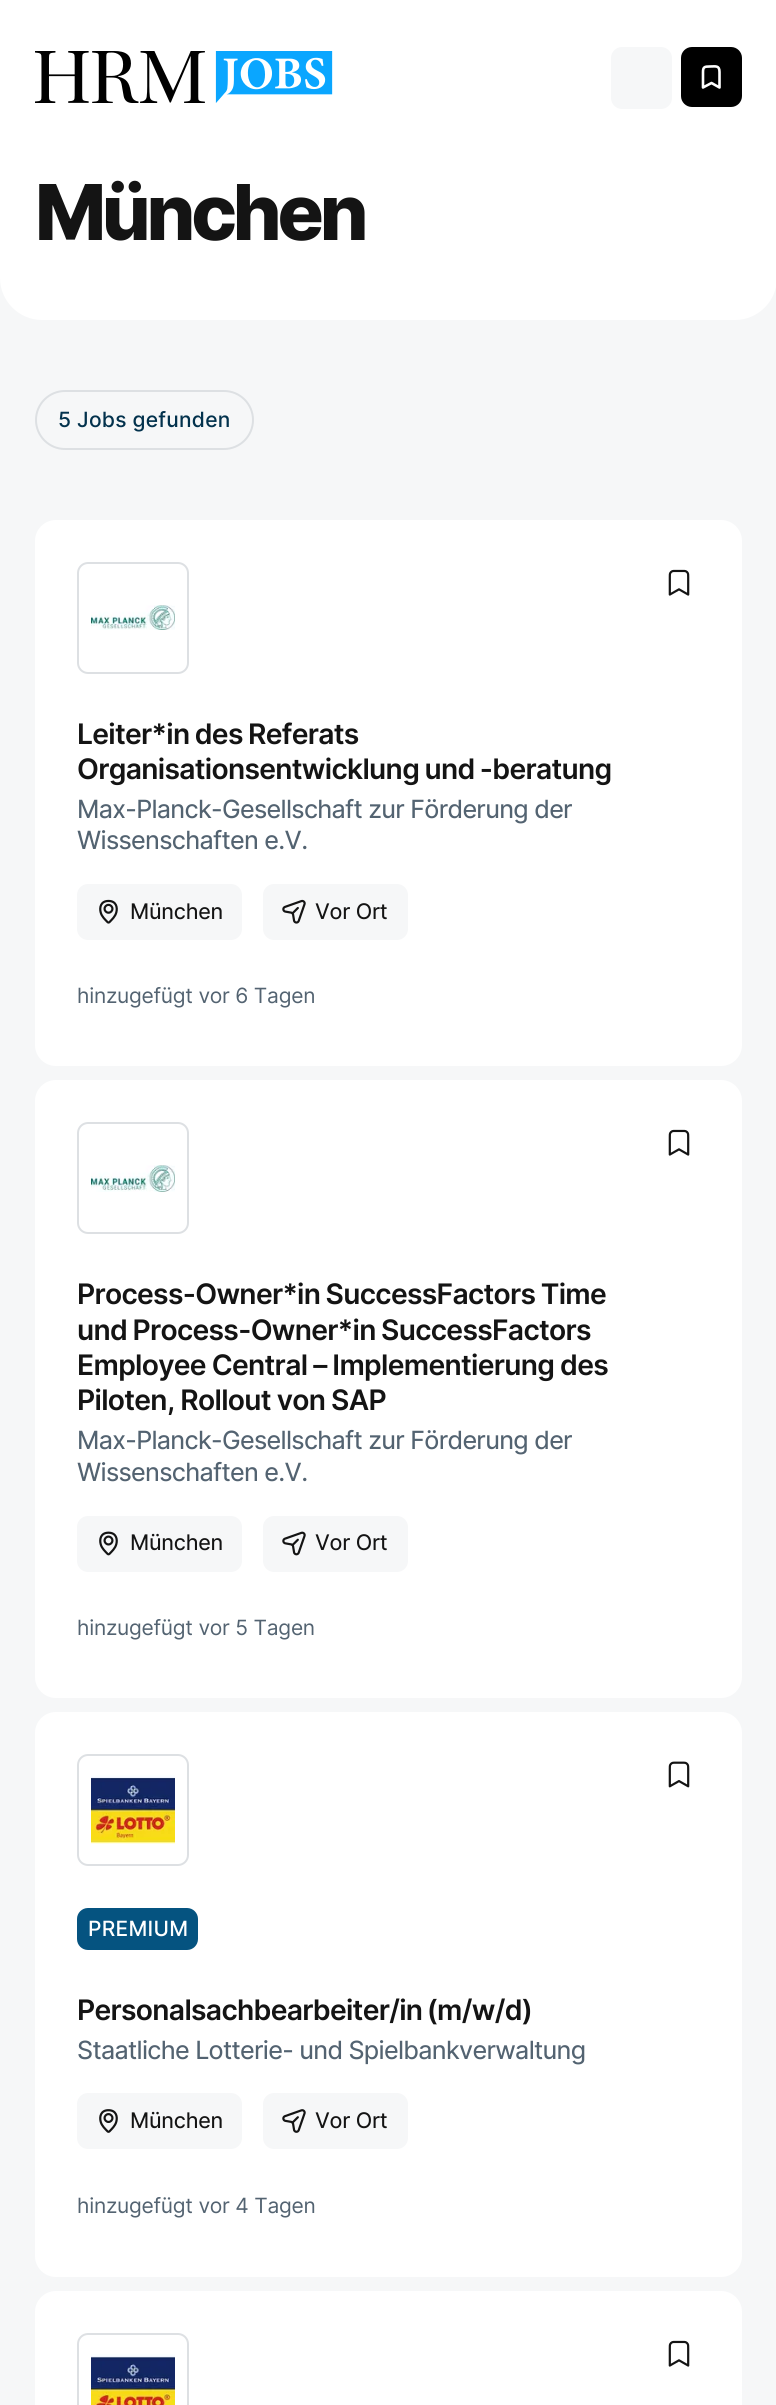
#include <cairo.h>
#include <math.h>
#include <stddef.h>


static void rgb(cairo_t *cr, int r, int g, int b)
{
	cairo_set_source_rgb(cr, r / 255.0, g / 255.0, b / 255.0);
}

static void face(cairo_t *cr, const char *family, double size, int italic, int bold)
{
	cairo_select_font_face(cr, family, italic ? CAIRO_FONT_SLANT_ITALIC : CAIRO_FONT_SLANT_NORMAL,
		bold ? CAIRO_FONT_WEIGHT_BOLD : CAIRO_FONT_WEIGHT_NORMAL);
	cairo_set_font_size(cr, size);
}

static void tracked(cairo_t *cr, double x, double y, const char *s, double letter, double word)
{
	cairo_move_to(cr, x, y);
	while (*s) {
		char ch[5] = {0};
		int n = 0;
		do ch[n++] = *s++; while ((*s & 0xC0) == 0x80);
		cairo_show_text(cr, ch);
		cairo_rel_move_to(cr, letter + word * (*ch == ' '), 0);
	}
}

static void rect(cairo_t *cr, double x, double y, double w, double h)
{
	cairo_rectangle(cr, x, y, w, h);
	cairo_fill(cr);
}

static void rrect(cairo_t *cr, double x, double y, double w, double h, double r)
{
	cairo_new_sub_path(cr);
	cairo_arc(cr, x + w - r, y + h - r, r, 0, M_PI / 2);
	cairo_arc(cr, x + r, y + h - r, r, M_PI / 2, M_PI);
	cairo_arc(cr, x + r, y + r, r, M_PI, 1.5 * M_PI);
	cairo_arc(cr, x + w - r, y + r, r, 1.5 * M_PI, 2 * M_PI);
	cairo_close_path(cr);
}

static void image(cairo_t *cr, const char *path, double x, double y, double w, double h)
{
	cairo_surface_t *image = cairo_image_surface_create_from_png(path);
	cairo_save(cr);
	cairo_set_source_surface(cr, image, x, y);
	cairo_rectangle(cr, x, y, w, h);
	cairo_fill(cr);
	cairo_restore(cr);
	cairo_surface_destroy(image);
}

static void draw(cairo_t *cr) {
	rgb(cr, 246, 247, 248);
	cairo_paint(cr);
	rgb(cr, 255, 255, 255);
	rect(cr, 0, 0, 776, 264);
	image(cr, "image0.png", 35, 51, 298, 52);
	rgb(cr, 246, 247, 248);
	rrect(cr, 611, 47, 61, 62, 11);
	cairo_fill(cr);
	rgb(cr, 0, 0, 0);
	rrect(cr, 682, 48, 59, 58, 10);
	cairo_fill_preserve(cr);
	cairo_stroke(cr);
	cairo_new_path(cr);
	cairo_move_to(cr, 703, 72);
	cairo_curve_to(cr, 703, 67, 704.5, 66.5, 709.5, 66.5);
	cairo_curve_to(cr, 715.5, 66.5, 719.5, 65, 719.5, 72);
	cairo_line_to(cr, 719.5, 87.5);
	cairo_line_to(cr, 711.5, 83);
	cairo_line_to(cr, 703, 87.5);
	cairo_close_path(cr);
	rgb(cr, 255, 255, 255);
	cairo_set_line_width(cr, 2.6);
	cairo_set_line_cap(cr, CAIRO_LINE_CAP_ROUND);
	cairo_set_line_join(cr, CAIRO_LINE_JOIN_ROUND);
	cairo_stroke(cr);
	face(cr, "Inter ExtraBold", 77, 0, 0);
	rgb(cr, 20, 20, 20);
	tracked(cr, 35, 240, "München", -4.25, 0);
	rgb(cr, 255, 255, 255);
	cairo_new_path(cr);
	cairo_move_to(cr, 0, 264);
	cairo_line_to(cr, 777, 264);
	cairo_line_to(cr, 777, 278);
	cairo_curve_to(cr, 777, 301, 758, 320, 735, 320);
	cairo_line_to(cr, 42, 320);
	cairo_curve_to(cr, 19, 320, 0, 301, 0, 278);
	cairo_close_path(cr);
	cairo_fill(cr);
	rrect(cr, 36, 391, 217, 58, 29);
	rgb(cr, 221, 224, 227);
	cairo_set_line_width(cr, 2);
	cairo_set_line_cap(cr, CAIRO_LINE_CAP_BUTT);
	cairo_set_line_join(cr, CAIRO_LINE_JOIN_MITER);
	cairo_stroke(cr);
	face(cr, "Inter Medium", 21, 0, 0);
	rgb(cr, 3, 50, 77);
	tracked(cr, 58, 427, "5 Jobs gefunden", 0.25, 0);
	rgb(cr, 255, 255, 255);
	rrect(cr, 35, 520, 707, 546, 21);
	cairo_fill(cr);
	rrect(cr, 78, 563, 110, 110, 10);
	rgb(cr, 221, 224, 227);
	cairo_stroke(cr);
	image(cr, "image1.png", 91, 605, 84, 25);
	image(cr, "image2.png", 668, 569, 22, 27);
	face(cr, "Inter SemiBold", 28.25, 0, 0);
	rgb(cr, 20, 20, 20);
	tracked(cr, 77, 744, "Leiter*in des Referats", -0.7, -1);
	tracked(cr, 77, 779, "Organisationsentwicklung und -beratung", -0.7, -1);
	face(cr, "Inter", 25.1, 0, 0);
	rgb(cr, 83, 99, 113);
	tracked(cr, 77, 818, "Max-Planck-Gesellschaft zur Förderung der", -0.7, 0);
	tracked(cr, 77, 849, "Wissenschaften e.V.", -0.7, 0);
	rgb(cr, 246, 247, 248);
	rrect(cr, 77, 884, 165, 56, 11);
	cairo_fill(cr);
	image(cr, "image3.png", 99, 899, 19, 25);
	face(cr, "Inter", 21.5, 0, 0);
	rgb(cr, 20, 20, 20);
	tracked(cr, 130, 919, "München", -0.25, 0);
	rgb(cr, 246, 247, 248);
	rrect(cr, 263, 884, 145, 56, 11);
	cairo_fill(cr);
	image(cr, "image4.png", 282, 899, 24, 25);
	rgb(cr, 20, 20, 20);
	tracked(cr, 315, 919, "Vor Ort", -0.25, 0);
	face(cr, "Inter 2", 21, 0, 0);
	rgb(cr, 83, 99, 113);
	tracked(cr, 77, 1003, "hinzugefügt vor 6 Tagen", -0.25, 0);
	rgb(cr, 255, 255, 255);
	rrect(cr, 35, 1080, 707, 618, 21);
	cairo_fill(cr);
	rrect(cr, 78, 1123, 110, 110, 10);
	rgb(cr, 221, 224, 227);
	cairo_stroke(cr);
	image(cr, "image5.png", 91, 1165, 84, 27);
	image(cr, "image2.png", 668, 1129, 22, 27);
	face(cr, "Inter SemiBold", 28.25, 0, 0);
	rgb(cr, 20, 20, 20);
	tracked(cr, 77, 1304, "Process-Owner*in SuccessFactors Time", -0.7, -1);
	tracked(cr, 77, 1340, "und Process-Owner*in SuccessFactors", -0.7, -1);
	tracked(cr, 77, 1375, "Employee Central – Implementierung des", -0.7, -0.5);
	tracked(cr, 77, 1410, "Piloten, Rollout von SAP", -0.7, -0.5);
	face(cr, "Inter", 25.1, 0, 0);
	rgb(cr, 83, 99, 113);
	tracked(cr, 77, 1449, "Max-Planck-Gesellschaft zur Förderung der", -0.7, 0);
	tracked(cr, 77, 1481, "Wissenschaften e.V.", -0.7, 0);
	rgb(cr, 246, 247, 248);
	rrect(cr, 77, 1516, 165, 56, 11);
	cairo_fill(cr);
	image(cr, "image6.png", 99, 1531, 19, 25);
	face(cr, "Inter", 21.5, 0, 0);
	rgb(cr, 20, 20, 20);
	tracked(cr, 130, 1550, "München", -0.25, 0);
	rgb(cr, 246, 247, 248);
	rrect(cr, 263, 1516, 145, 56, 11);
	cairo_fill(cr);
	image(cr, "image7.png", 282, 1531, 24, 25);
	rgb(cr, 20, 20, 20);
	tracked(cr, 315, 1550, "Vor Ort", -0.25, 0);
	face(cr, "Inter 2", 21, 0, 0);
	rgb(cr, 83, 99, 113);
	tracked(cr, 77, 1635, "hinzugefügt vor 5 Tagen", -0.25, 0);
	rgb(cr, 255, 255, 255);
	rrect(cr, 35, 1712, 707, 565, 21);
	cairo_fill(cr);
	rrect(cr, 78, 1755, 110, 110, 10);
	rgb(cr, 221, 224, 227);
	cairo_stroke(cr);
	image(cr, "image8.png", 91, 1775, 84, 69);
	image(cr, "image9.png", 668, 1761, 22, 27);
	rgb(cr, 5, 83, 128);
	rrect(cr, 77, 1908, 121, 42, 11);
	cairo_fill(cr);
	face(cr, "Inter Medium", 21, 0, 0);
	rgb(cr, 255, 255, 255);
	tracked(cr, 88, 1936, "PREMIUM", 0.25, 0);
	face(cr, "Inter SemiBold", 28.25, 0, 0);
	rgb(cr, 20, 20, 20);
	tracked(cr, 77, 2020, "Personalsachbearbeiter/in (m/w/d)", -0.7, -2);
	face(cr, "Inter", 25.1, 0, 0);
	rgb(cr, 83, 99, 113);
	tracked(cr, 77, 2059, "Staatliche Lotterie- und Spielbankverwaltung", -0.7, 0);
	rgb(cr, 246, 247, 248);
	rrect(cr, 77, 2093, 165, 56, 11);
	cairo_fill(cr);
	image(cr, "image10.png", 99, 2109, 19, 24);
	face(cr, "Inter", 21.5, 0, 0);
	rgb(cr, 20, 20, 20);
	tracked(cr, 130, 2128, "München", -0.25, 0);
	rgb(cr, 246, 247, 248);
	rrect(cr, 263, 2093, 145, 56, 11);
	cairo_fill(cr);
	image(cr, "image11.png", 282, 2109, 24, 24);
	rgb(cr, 20, 20, 20);
	tracked(cr, 315, 2128, "Vor Ort", -0.25, 0);
	face(cr, "Inter 2", 21, 0, 0);
	rgb(cr, 83, 99, 113);
	tracked(cr, 77, 2213, "hinzugefügt vor 4 Tagen", -0.25, 0);
	rgb(cr, 255, 255, 255);
	rrect(cr, 35, 2291, 707, 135, 21);
	cairo_fill(cr);
	rrect(cr, 78, 2334, 110, 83, 10);
	rgb(cr, 221, 224, 227);
	cairo_stroke(cr);
	image(cr, "image12.png", 91, 2354, 84, 51);
	image(cr, "image2.png", 668, 2340, 22, 27);
}

int main(void) {
	cairo_surface_t *surface = cairo_image_surface_create(CAIRO_FORMAT_RGB24, 776, 2405);
	cairo_t *cr = cairo_create(surface);
	cairo_font_options_t *options = cairo_font_options_create();
	cairo_font_options_set_hint_metrics(options, CAIRO_HINT_METRICS_OFF);
	cairo_font_options_set_hint_style(options, CAIRO_HINT_STYLE_NONE);
	cairo_set_font_options(cr, options);
	cairo_set_miter_limit(cr, 4);
	draw(cr);
	cairo_surface_write_to_png(surface, "render.png");
	cairo_font_options_destroy(options);
	cairo_destroy(cr);
	cairo_surface_destroy(surface);
	return 0;
}
